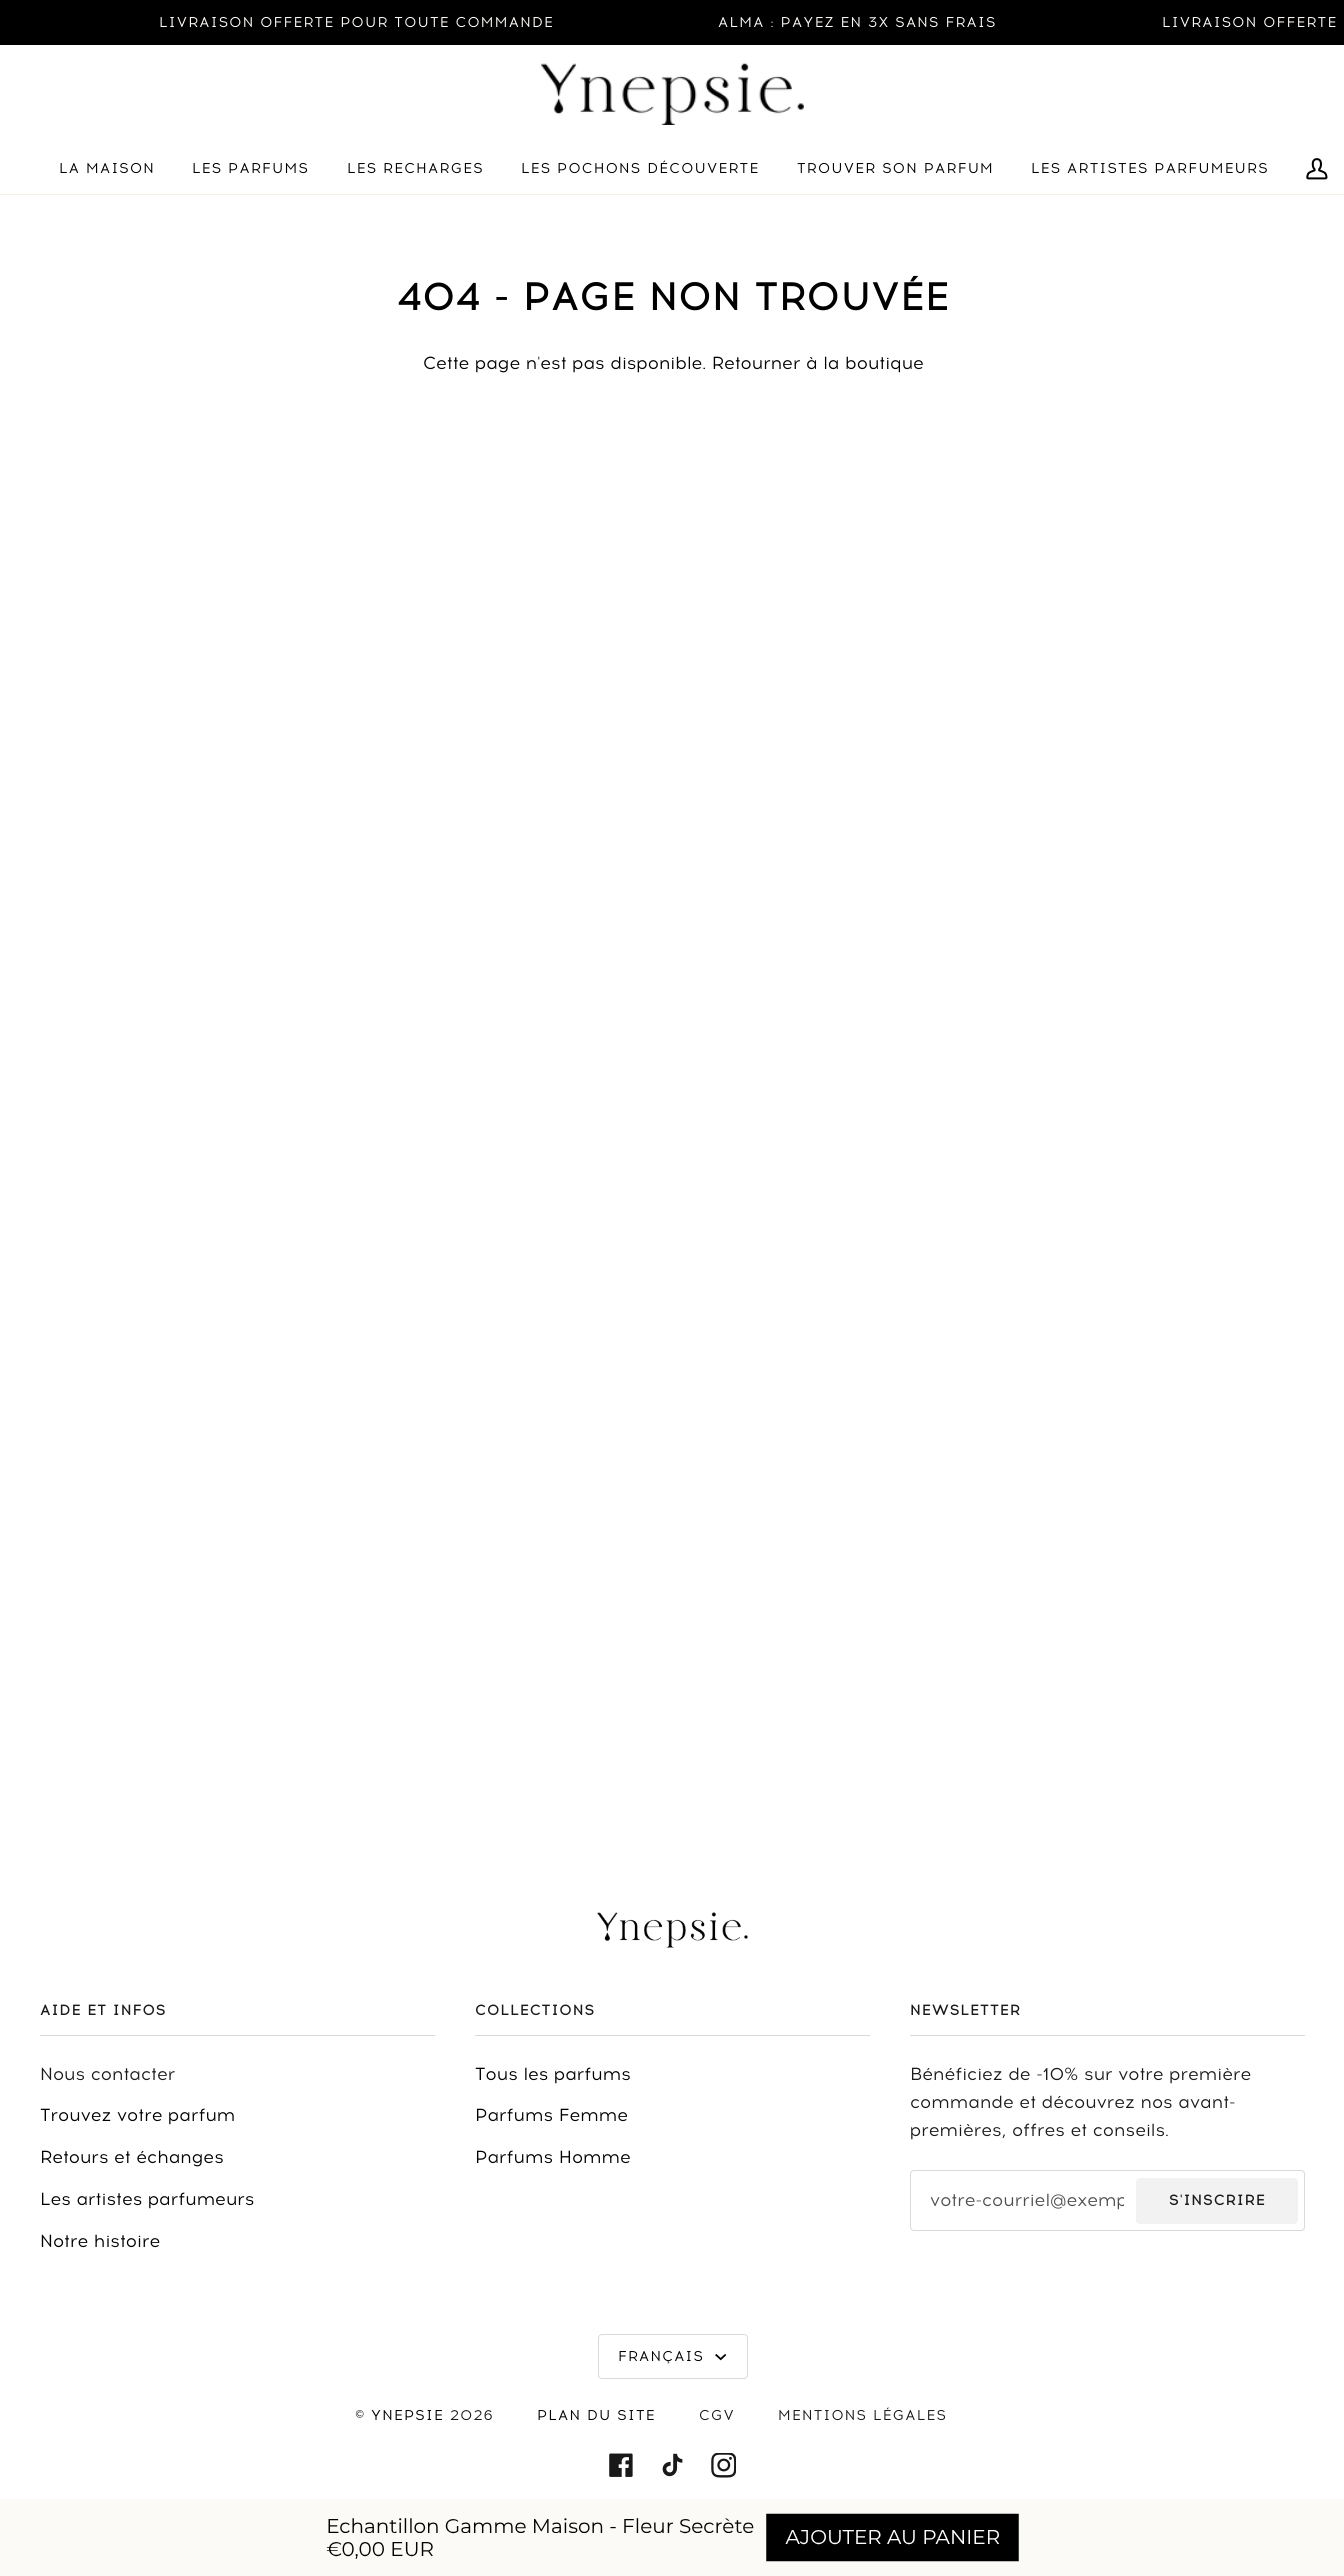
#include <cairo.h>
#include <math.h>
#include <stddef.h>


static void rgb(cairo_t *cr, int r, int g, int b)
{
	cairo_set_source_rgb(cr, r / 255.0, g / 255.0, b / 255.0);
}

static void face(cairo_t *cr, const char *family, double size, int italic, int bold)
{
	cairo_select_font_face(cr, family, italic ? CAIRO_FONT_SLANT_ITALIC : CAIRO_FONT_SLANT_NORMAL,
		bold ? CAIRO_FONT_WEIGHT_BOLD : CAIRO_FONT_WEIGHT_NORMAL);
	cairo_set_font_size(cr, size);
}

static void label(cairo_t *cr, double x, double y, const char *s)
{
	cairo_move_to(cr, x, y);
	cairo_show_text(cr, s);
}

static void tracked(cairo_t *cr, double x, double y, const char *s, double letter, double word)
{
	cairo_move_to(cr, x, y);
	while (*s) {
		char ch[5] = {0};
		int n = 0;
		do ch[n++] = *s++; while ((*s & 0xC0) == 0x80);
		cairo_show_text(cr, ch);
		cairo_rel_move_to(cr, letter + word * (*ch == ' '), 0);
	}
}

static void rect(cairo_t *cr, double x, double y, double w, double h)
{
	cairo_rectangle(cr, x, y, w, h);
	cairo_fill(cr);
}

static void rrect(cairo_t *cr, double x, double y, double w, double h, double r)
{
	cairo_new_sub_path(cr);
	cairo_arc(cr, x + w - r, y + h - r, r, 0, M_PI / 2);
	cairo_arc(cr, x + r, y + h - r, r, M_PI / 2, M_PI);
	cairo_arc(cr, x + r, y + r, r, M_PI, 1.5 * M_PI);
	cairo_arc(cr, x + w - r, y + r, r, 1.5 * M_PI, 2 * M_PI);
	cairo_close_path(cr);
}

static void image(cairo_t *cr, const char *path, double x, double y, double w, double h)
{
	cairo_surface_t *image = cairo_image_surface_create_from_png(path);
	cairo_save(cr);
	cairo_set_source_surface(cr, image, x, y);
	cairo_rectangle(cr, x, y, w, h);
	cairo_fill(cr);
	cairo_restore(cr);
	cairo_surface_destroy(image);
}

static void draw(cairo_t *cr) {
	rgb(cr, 255, 255, 255);
	cairo_paint(cr);
	rgb(cr, 0, 0, 0);
	rect(cr, 0, 0, 1344, 45);
	face(cr, "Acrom", 14.25, 0, 0);
	rgb(cr, 255, 252, 249);
	tracked(cr, 159, 27, "LIVRAISON OFFERTE POUR TOUTE COMMANDE", 1.25, 0);
	tracked(cr, 718, 27, "ALMA : PAYEZ EN 3X SANS FRAIS", 1.25, 0);
	tracked(cr, 1162, 27, "LIVRAISON OFFERTE", 1.25, 0);
	rgb(cr, 248, 240, 231);
	rect(cr, 0, 194, 1344, 1);
	image(cr, "image0.png", 541, 63, 263, 62);
	rgb(cr, 0, 0, 0);
	tracked(cr, 59, 173, "LA MAISON", 1.25, 0);
	tracked(cr, 192, 173, "LES PARFUMS", 1.25, 0);
	tracked(cr, 347, 173, "LES RECHARGES", 1.25, 0);
	tracked(cr, 521, 173, "LES POCHONS DÉCOUVERTE", 1.25, 0);
	tracked(cr, 797, 173, "TROUVER SON PARFUM", 1.25, 0);
	tracked(cr, 1031, 173, "LES ARTISTES PARFUMEURS", 1.25, 0);
	image(cr, "image1.png", 1306, 158, 22, 22);
	face(cr, "Acrom", 38.1, 0, 1);
	tracked(cr, 397, 310, "404 - PAGE NON TROUVÉE", 1.25, 0);
	face(cr, "Acrom", 17.55, 0, 0);
	label(cr, 423, 369, "Cette page n'est pas disponible. Retourner à la boutique");
	image(cr, "image2.png", 597, 1912, 151, 36);
	rgb(cr, 217, 217, 217);
	rect(cr, 40, 2035, 395, 1);
	face(cr, "Acrom", 14.25, 0, 1);
	rgb(cr, 26, 26, 26);
	tracked(cr, 40, 2015, "AIDE ET INFOS", 1.25, 0);
	face(cr, "Acrom", 17.55, 0, 0);
	label(cr, 40, 2080, "Nous contacter");
	rgb(cr, 0, 0, 0);
	label(cr, 40, 2121, "Trouvez votre parfum");
	label(cr, 40, 2163, "Retours et échanges");
	label(cr, 40, 2205, "Les artistes parfumeurs");
	label(cr, 40, 2247, "Notre histoire");
	rgb(cr, 217, 217, 217);
	rect(cr, 475, 2035, 395, 1);
	face(cr, "Acrom", 14.25, 0, 1);
	rgb(cr, 26, 26, 26);
	tracked(cr, 475, 2015, "COLLECTIONS", 1.25, 0);
	face(cr, "Acrom", 17.55, 0, 0);
	rgb(cr, 0, 0, 0);
	label(cr, 475, 2080, "Tous les parfums");
	label(cr, 475, 2121, "Parfums Femme");
	label(cr, 475, 2163, "Parfums Homme");
	rgb(cr, 217, 217, 217);
	rect(cr, 910, 2035, 395, 1);
	face(cr, "Acrom", 14.25, 0, 1);
	rgb(cr, 26, 26, 26);
	tracked(cr, 910, 2015, "NEWSLETTER", 1.25, 0);
	face(cr, "Acrom", 17.55, 0, 0);
	label(cr, 910, 2080, "Bénéficiez de -10% sur votre première");
	label(cr, 910, 2108, "commande et découvrez nos avant-");
	label(cr, 910, 2136, "premières, offres et conseils.");
	rrect(cr, 910.5, 2170.5, 394, 60, 3.5);
	rgb(cr, 217, 217, 217);
	cairo_set_line_width(cr, 1);
	cairo_stroke(cr);
	cairo_save(cr);
	cairo_rectangle(cr, 930, 2190, 194, 21);
	cairo_clip(cr);
	rgb(cr, 77, 77, 77);
	label(cr, 930, 2206, "votre-courriel@exemp");
	cairo_restore(cr);
	rgb(cr, 242, 242, 242);
	rrect(cr, 1136, 2178, 162, 46, 4);
	cairo_fill(cr);
	face(cr, "Acrom", 14.25, 0, 1);
	rgb(cr, 26, 26, 26);
	tracked(cr, 1169, 2205, "S'INSCRIRE", 1.25, 0);
	rrect(cr, 598.5, 2334.5, 149, 44, 3.5);
	rgb(cr, 217, 217, 217);
	cairo_stroke(cr);
	face(cr, "Acrom", 14.25, 0, 0);
	rgb(cr, 0, 0, 0);
	tracked(cr, 618, 2361, "FRANÇAIS", 1.25, 0);
	image(cr, "image3.png", 715, 2354, 11, 7);
	rgb(cr, 26, 26, 26);
	tracked(cr, 355, 2420, "©", 1.25, 0);
	rgb(cr, 0, 0, 0);
	tracked(cr, 371, 2420, "YNEPSIE", 1.25, 0);
	rgb(cr, 26, 26, 26);
	tracked(cr, 450, 2420, "2026", 1.25, 0);
	rgb(cr, 0, 0, 0);
	tracked(cr, 537, 2420, "PLAN DU SITE", 1.25, 0);
	rgb(cr, 26, 26, 26);
	tracked(cr, 699, 2420, "CGV", 1.25, 0);
	tracked(cr, 778, 2420, "MENTIONS LÉGALES", 1.25, 0);
	image(cr, "image4.png", 609, 2453, 24, 24);
	image(cr, "image5.png", 662, 2453, 21, 24);
	image(cr, "image6.png", 711, 2453, 25, 25);
	image(cr, "image7.png", 0, 2499, 1344, 77);
}

int main(void) {
	cairo_surface_t *surface = cairo_image_surface_create(CAIRO_FORMAT_RGB24, 1344, 2576);
	cairo_t *cr = cairo_create(surface);
	cairo_font_options_t *options = cairo_font_options_create();
	cairo_font_options_set_hint_metrics(options, CAIRO_HINT_METRICS_OFF);
	cairo_font_options_set_hint_style(options, CAIRO_HINT_STYLE_NONE);
	cairo_set_font_options(cr, options);
	cairo_set_miter_limit(cr, 4);
	draw(cr);
	cairo_surface_write_to_png(surface, "render.png");
	cairo_font_options_destroy(options);
	cairo_destroy(cr);
	cairo_surface_destroy(surface);
	return 0;
}
